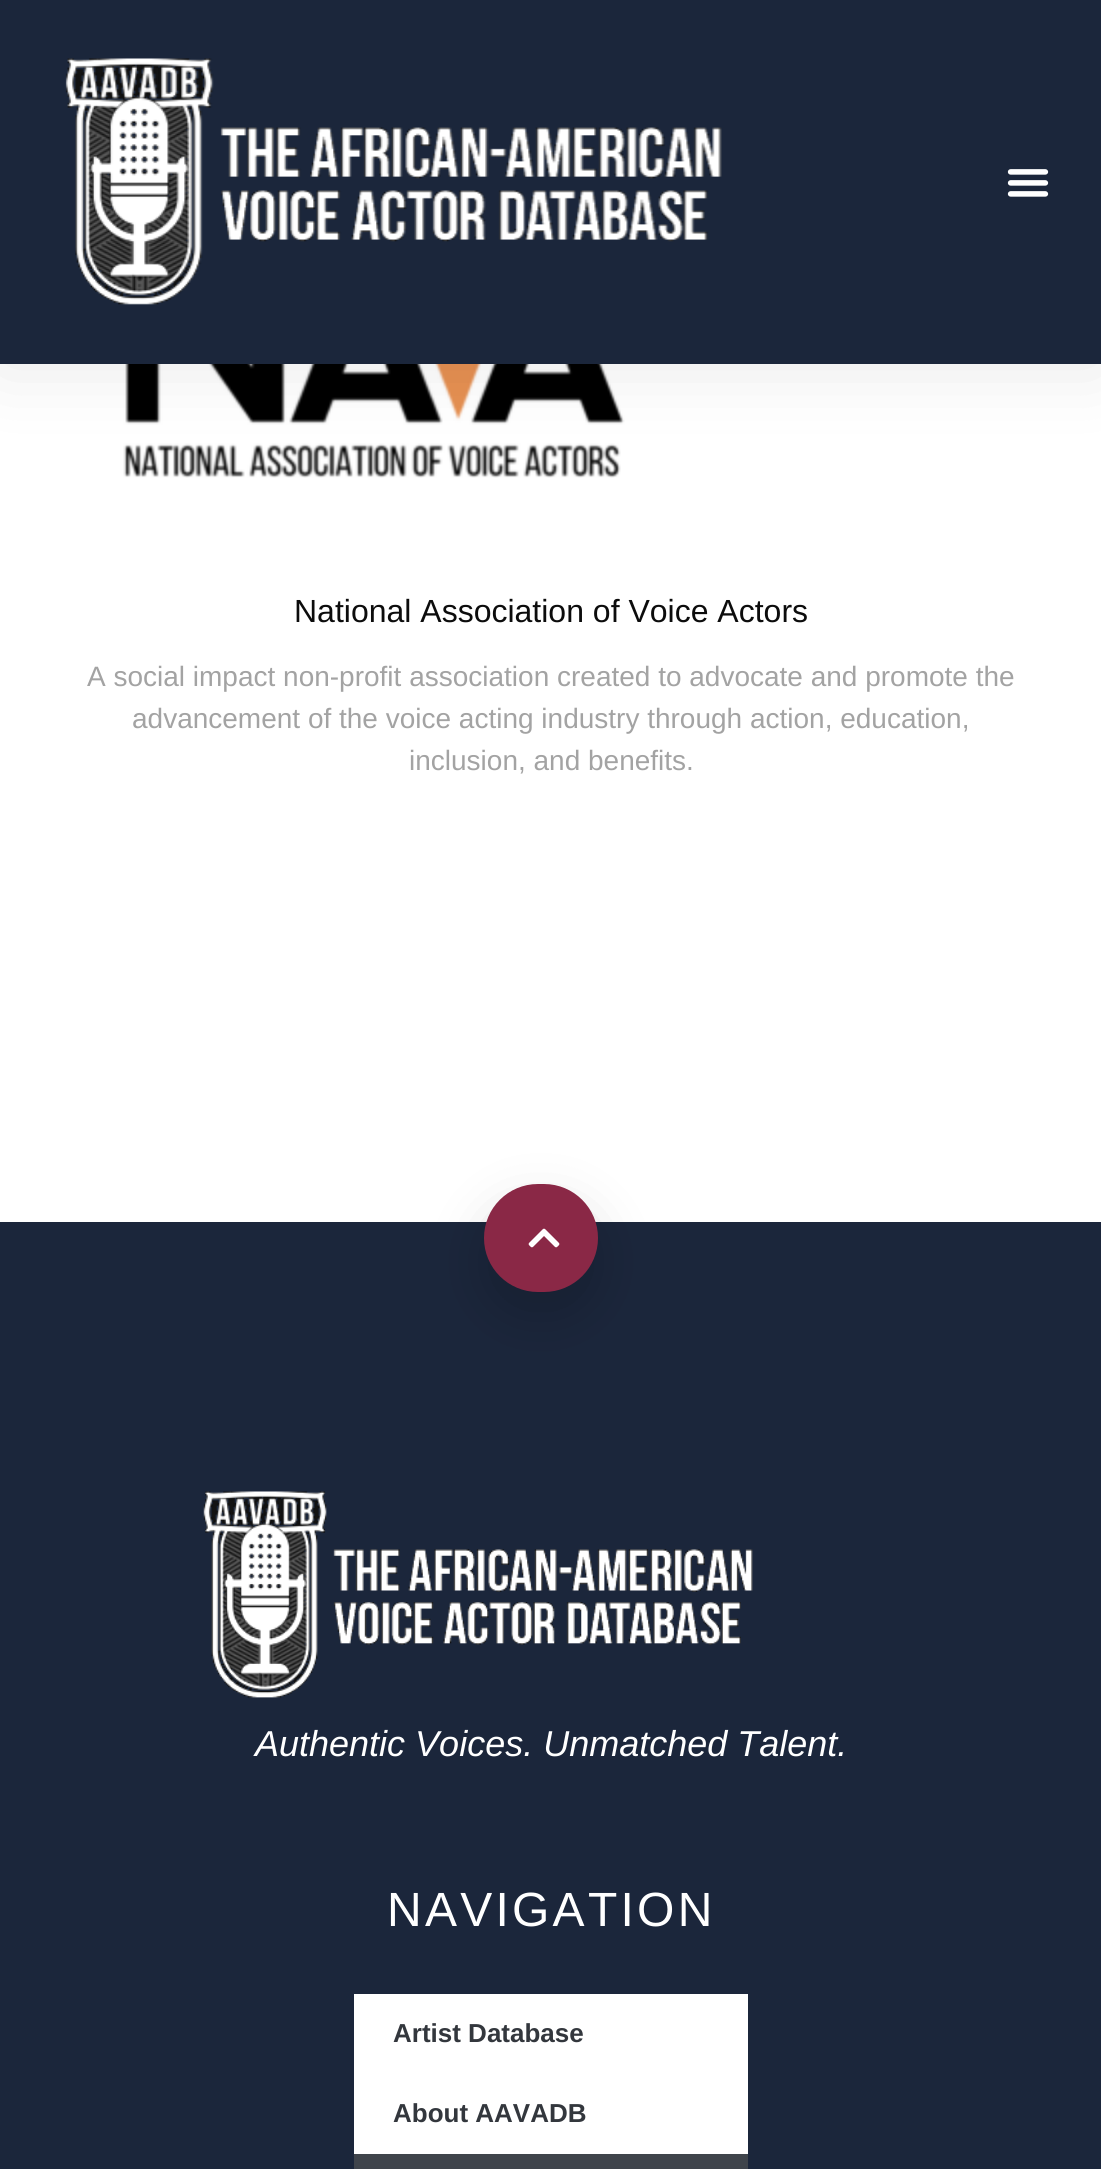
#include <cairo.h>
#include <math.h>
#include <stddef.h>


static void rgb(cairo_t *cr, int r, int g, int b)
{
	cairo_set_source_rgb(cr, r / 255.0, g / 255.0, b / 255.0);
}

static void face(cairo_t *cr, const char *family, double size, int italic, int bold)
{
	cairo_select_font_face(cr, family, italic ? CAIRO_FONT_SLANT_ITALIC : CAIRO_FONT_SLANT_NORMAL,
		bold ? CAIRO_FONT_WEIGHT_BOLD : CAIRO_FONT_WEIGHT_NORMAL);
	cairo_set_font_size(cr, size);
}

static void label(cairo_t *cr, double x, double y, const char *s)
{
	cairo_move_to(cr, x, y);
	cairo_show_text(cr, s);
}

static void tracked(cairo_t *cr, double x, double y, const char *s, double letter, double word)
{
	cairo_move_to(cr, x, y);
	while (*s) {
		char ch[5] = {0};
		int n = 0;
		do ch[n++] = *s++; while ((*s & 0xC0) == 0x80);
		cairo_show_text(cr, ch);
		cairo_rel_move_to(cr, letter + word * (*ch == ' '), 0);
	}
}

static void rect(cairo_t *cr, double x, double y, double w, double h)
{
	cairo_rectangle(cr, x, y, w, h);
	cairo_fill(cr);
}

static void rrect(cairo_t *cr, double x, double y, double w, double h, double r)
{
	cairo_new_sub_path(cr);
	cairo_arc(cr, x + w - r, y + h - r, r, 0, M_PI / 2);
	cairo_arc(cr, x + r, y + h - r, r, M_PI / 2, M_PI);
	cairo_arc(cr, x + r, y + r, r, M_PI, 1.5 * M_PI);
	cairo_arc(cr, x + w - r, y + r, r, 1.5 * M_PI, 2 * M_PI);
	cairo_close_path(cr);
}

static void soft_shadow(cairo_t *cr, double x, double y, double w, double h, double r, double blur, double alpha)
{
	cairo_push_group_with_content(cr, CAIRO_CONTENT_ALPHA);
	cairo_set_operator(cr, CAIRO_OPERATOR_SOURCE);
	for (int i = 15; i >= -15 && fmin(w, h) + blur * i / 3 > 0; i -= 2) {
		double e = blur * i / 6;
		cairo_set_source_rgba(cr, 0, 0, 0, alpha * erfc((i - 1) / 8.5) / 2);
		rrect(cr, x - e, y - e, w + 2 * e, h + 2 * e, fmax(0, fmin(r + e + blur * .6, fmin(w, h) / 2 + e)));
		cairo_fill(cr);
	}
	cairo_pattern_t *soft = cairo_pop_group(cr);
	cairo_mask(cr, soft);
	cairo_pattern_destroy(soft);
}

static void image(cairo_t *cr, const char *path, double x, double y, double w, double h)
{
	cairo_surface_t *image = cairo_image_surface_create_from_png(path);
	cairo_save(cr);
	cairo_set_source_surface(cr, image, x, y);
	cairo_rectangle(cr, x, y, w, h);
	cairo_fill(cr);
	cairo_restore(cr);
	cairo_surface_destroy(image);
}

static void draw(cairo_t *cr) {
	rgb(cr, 255, 255, 255);
	cairo_paint(cr);
	image(cr, "image2.png", 123, 364, 502, 114);
	rgb(cr, 0, 0, 0);
	soft_shadow(cr, 0, 0, 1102, 364, 0, 38, 0.1);
	rgb(cr, 27, 38, 59);
	rect(cr, 0, 0, 1101, 364);
	image(cr, "image0.png", 65, 58, 657, 247);
	image(cr, "image1.png", 1007, 169, 42, 28);
	face(cr, "Liberation Sans", 32, 0, 0);
	rgb(cr, 12, 12, 12);
	label(cr, 294, 622, "National Association of Voice Actors");
	face(cr, "Liberation Sans", 28, 0, 0);
	rgb(cr, 163, 163, 163);
	label(cr, 87, 686, "A social impact non-profit association created to advocate and promote the");
	label(cr, 132, 728, "advancement of the voice acting industry through action, education,");
	label(cr, 409, 770, "inclusion, and benefits.");
	rgb(cr, 27, 38, 59);
	rect(cr, 0, 1222, 1101, 947);
	rgb(cr, 0, 0, 0);
	soft_shadow(cr, 492, 1216, 98, 92, 46, 29, 0.19);
	rgb(cr, 138, 40, 70);
	rrect(cr, 487, 1187, 108, 102, 51);
	cairo_fill_preserve(cr);
	cairo_set_line_width(cr, 6);
	cairo_stroke(cr);
	image(cr, "image3.png", 528, 1228, 32, 20);
	image(cr, "image4.png", 203, 1491, 550, 207);
	face(cr, "Liberation Sans", 36, 1, 0);
	rgb(cr, 255, 255, 255);
	label(cr, 255, 1756, "Authentic Voices. Unmatched Talent.");
	face(cr, "Liberation Sans", 48, 0, 0);
	tracked(cr, 387, 1926, "NAVIGATION", 3.25, 0);
	rect(cr, 354, 1994, 394, 160);
	face(cr, "Liberation Sans", 26, 0, 1);
	rgb(cr, 51, 55, 61);
	label(cr, 393, 2042, "Artist Database");
	label(cr, 393, 2122, "About AAVADB");
	rgb(cr, 63, 68, 75);
	rect(cr, 354, 2154, 394, 15);
}

int main(void) {
	cairo_surface_t *surface = cairo_image_surface_create(CAIRO_FORMAT_RGB24, 1101, 2169);
	cairo_t *cr = cairo_create(surface);
	cairo_font_options_t *options = cairo_font_options_create();
	cairo_font_options_set_hint_metrics(options, CAIRO_HINT_METRICS_OFF);
	cairo_font_options_set_hint_style(options, CAIRO_HINT_STYLE_NONE);
	cairo_set_font_options(cr, options);
	cairo_set_miter_limit(cr, 4);
	draw(cr);
	cairo_surface_write_to_png(surface, "render.png");
	cairo_font_options_destroy(options);
	cairo_destroy(cr);
	cairo_surface_destroy(surface);
	return 0;
}
